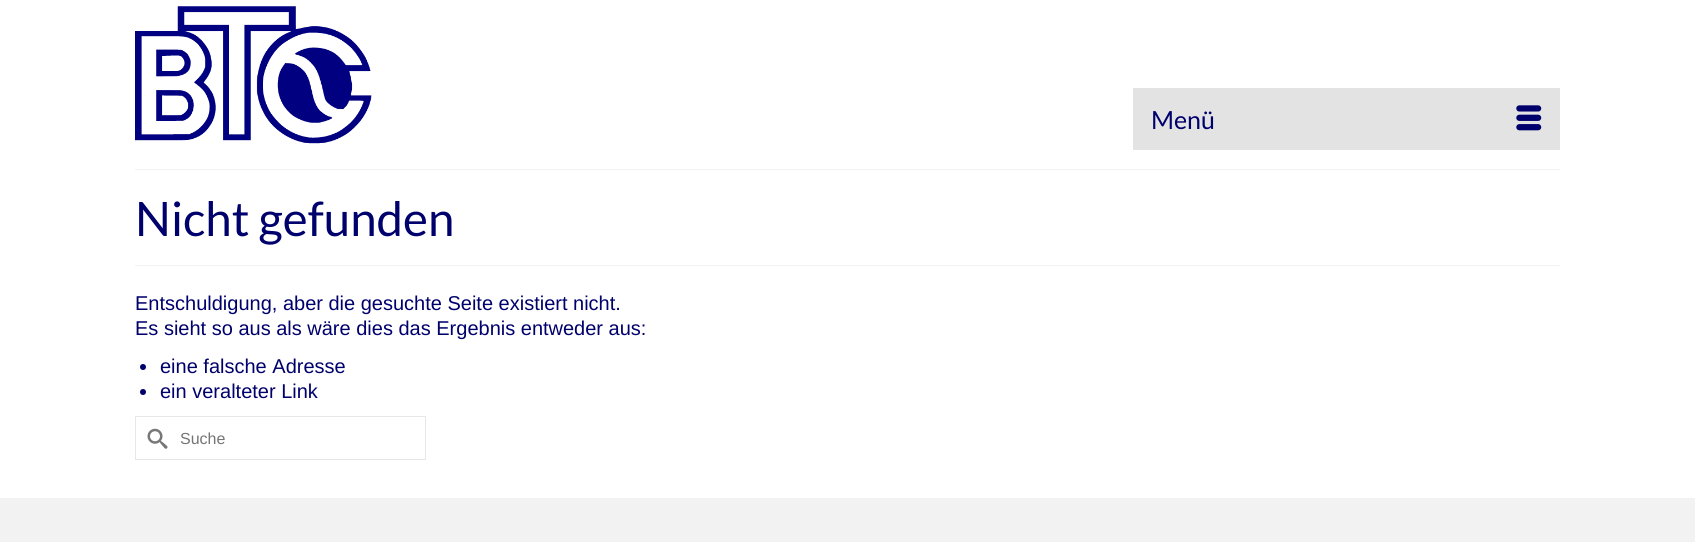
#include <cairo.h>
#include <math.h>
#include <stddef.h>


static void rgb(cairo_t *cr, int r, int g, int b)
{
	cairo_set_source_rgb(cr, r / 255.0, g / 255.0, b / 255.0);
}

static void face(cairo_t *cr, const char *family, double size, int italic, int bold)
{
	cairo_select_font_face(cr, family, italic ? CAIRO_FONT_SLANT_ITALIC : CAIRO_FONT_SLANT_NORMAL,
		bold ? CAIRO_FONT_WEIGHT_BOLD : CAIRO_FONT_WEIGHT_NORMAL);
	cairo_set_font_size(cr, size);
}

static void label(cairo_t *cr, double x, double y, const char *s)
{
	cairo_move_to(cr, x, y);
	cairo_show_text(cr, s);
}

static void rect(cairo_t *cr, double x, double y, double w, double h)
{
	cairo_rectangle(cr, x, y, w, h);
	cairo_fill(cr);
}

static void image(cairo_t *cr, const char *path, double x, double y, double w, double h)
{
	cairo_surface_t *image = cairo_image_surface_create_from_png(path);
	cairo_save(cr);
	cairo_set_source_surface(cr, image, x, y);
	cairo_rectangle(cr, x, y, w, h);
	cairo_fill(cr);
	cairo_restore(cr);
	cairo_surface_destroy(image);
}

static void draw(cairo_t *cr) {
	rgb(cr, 255, 255, 255);
	cairo_paint(cr);
	image(cr, "image0.png", 135, 6, 237, 138);
	rgb(cr, 227, 227, 227);
	rect(cr, 1133, 88, 427, 62);
	face(cr, "Lato", 25, 0, 0);
	rgb(cr, 0, 0, 109);
	label(cr, 1151, 129, "Menü");
	image(cr, "image1.png", 1516, 105, 26, 26);
	rgb(cr, 242, 242, 242);
	rect(cr, 135, 169, 1425, 1);
	rect(cr, 135, 265, 1425, 1);
	face(cr, "Lato", 47.5, 0, 0);
	rgb(cr, 0, 0, 109);
	label(cr, 135, 236, "Nicht gefunden");
	face(cr, "Liberation Sans", 20, 0, 0);
	label(cr, 135, 310, "Entschuldigung, aber die gesuchte Seite existiert nicht.");
	label(cr, 135, 335, "Es sieht so aus als wäre dies das Ergebnis entweder aus:");
	cairo_new_path(cr);
	cairo_arc(cr, 143, 367, 3, 0, 2 * M_PI);
	cairo_fill(cr);
	label(cr, 160, 373, "eine falsche Adresse");
	cairo_new_path(cr);
	cairo_arc(cr, 143, 392, 3, 0, 2 * M_PI);
	cairo_fill(cr);
	label(cr, 160, 398, "ein veralteter Link");
	cairo_rectangle(cr, 135.5, 416.5, 290, 43);
	rgb(cr, 231, 231, 231);
	cairo_set_line_width(cr, 1);
	cairo_stroke(cr);
	image(cr, "image2.png", 147, 428, 21, 21);
	face(cr, "Liberation Sans", 16, 0, 0);
	rgb(cr, 117, 117, 117);
	label(cr, 180, 444, "Suche");
	rgb(cr, 242, 242, 242);
	rect(cr, 0, 498, 1695, 44);
}

int main(void) {
	cairo_surface_t *surface = cairo_image_surface_create(CAIRO_FORMAT_RGB24, 1695, 542);
	cairo_t *cr = cairo_create(surface);
	cairo_font_options_t *options = cairo_font_options_create();
	cairo_font_options_set_hint_metrics(options, CAIRO_HINT_METRICS_OFF);
	cairo_font_options_set_hint_style(options, CAIRO_HINT_STYLE_NONE);
	cairo_set_font_options(cr, options);
	cairo_set_miter_limit(cr, 4);
	draw(cr);
	cairo_surface_write_to_png(surface, "render.png");
	cairo_font_options_destroy(options);
	cairo_destroy(cr);
	cairo_surface_destroy(surface);
	return 0;
}
